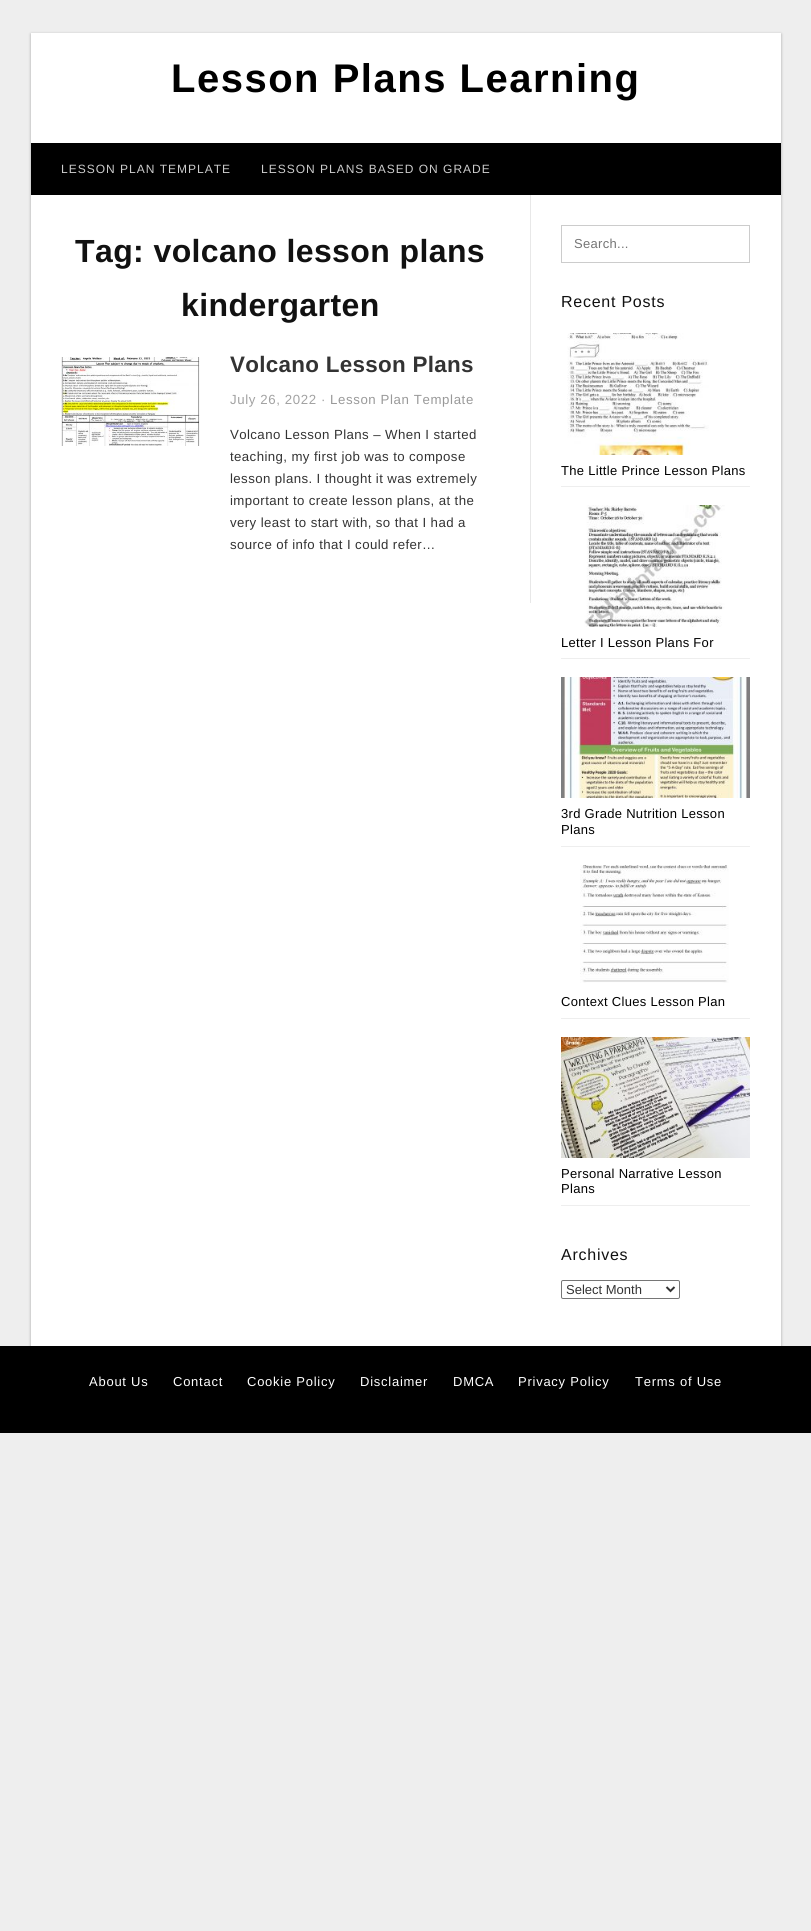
#include <cairo.h>
#include <math.h>
#include <stddef.h>


static void rgb(cairo_t *cr, int r, int g, int b)
{
	cairo_set_source_rgb(cr, r / 255.0, g / 255.0, b / 255.0);
}

static void face(cairo_t *cr, const char *family, double size, int italic, int bold)
{
	cairo_select_font_face(cr, family, italic ? CAIRO_FONT_SLANT_ITALIC : CAIRO_FONT_SLANT_NORMAL,
		bold ? CAIRO_FONT_WEIGHT_BOLD : CAIRO_FONT_WEIGHT_NORMAL);
	cairo_set_font_size(cr, size);
}

static void label(cairo_t *cr, double x, double y, const char *s)
{
	cairo_move_to(cr, x, y);
	cairo_show_text(cr, s);
}

static void tracked(cairo_t *cr, double x, double y, const char *s, double letter, double word)
{
	cairo_move_to(cr, x, y);
	while (*s) {
		char ch[5] = {0};
		int n = 0;
		do ch[n++] = *s++; while ((*s & 0xC0) == 0x80);
		cairo_show_text(cr, ch);
		cairo_rel_move_to(cr, letter + word * (*ch == ' '), 0);
	}
}

static void rect(cairo_t *cr, double x, double y, double w, double h)
{
	cairo_rectangle(cr, x, y, w, h);
	cairo_fill(cr);
}

static void rrect(cairo_t *cr, double x, double y, double w, double h, double r)
{
	cairo_new_sub_path(cr);
	cairo_arc(cr, x + w - r, y + h - r, r, 0, M_PI / 2);
	cairo_arc(cr, x + r, y + h - r, r, M_PI / 2, M_PI);
	cairo_arc(cr, x + r, y + r, r, M_PI, 1.5 * M_PI);
	cairo_arc(cr, x + w - r, y + r, r, 1.5 * M_PI, 2 * M_PI);
	cairo_close_path(cr);
}

static void soft_shadow(cairo_t *cr, double x, double y, double w, double h, double r, double blur, double alpha)
{
	cairo_push_group_with_content(cr, CAIRO_CONTENT_ALPHA);
	cairo_set_operator(cr, CAIRO_OPERATOR_SOURCE);
	for (int i = 15; i >= -15 && fmin(w, h) + blur * i / 3 > 0; i -= 2) {
		double e = blur * i / 6;
		cairo_set_source_rgba(cr, 0, 0, 0, alpha * erfc((i - 1) / 8.5) / 2);
		rrect(cr, x - e, y - e, w + 2 * e, h + 2 * e, fmax(0, fmin(r + e + blur * .6, fmin(w, h) / 2 + e)));
		cairo_fill(cr);
	}
	cairo_pattern_t *soft = cairo_pop_group(cr);
	cairo_mask(cr, soft);
	cairo_pattern_destroy(soft);
}

static void image(cairo_t *cr, const char *path, double x, double y, double w, double h)
{
	cairo_surface_t *image = cairo_image_surface_create_from_png(path);
	cairo_save(cr);
	cairo_set_source_surface(cr, image, x, y);
	cairo_rectangle(cr, x, y, w, h);
	cairo_fill(cr);
	cairo_restore(cr);
	cairo_surface_destroy(image);
}

static void draw(cairo_t *cr) {
	rgb(cr, 238, 238, 238);
	cairo_paint(cr);
	rgb(cr, 0, 0, 0);
	rect(cr, 0, 1346, 811, 87);
	rgb(cr, 0, 0, 0);
	soft_shadow(cr, 31, 34, 750, 1313, 0, 1.5, 0.3);
	rgb(cr, 255, 255, 255);
	rect(cr, 31, 33, 750, 1313);
	face(cr, "Liberation Sans", 40, 0, 1);
	rgb(cr, 0, 0, 0);
	tracked(cr, 171, 92, "Lesson Plans Learning", 1.5, 0);
	rect(cr, 31, 143, 750, 52);
	face(cr, "Liberation Sans", 12, 0, 0);
	rgb(cr, 204, 204, 204);
	tracked(cr, 61, 173, "LESSON PLAN TEMPLATE", 1, 0);
	tracked(cr, 261, 173, "LESSON PLANS BASED ON GRADE", 1, 0);
	rgb(cr, 232, 232, 232);
	rect(cr, 530, 195, 1, 408);
	face(cr, "Liberation Sans", 32, 0, 1);
	rgb(cr, 17, 17, 17);
	tracked(cr, 75, 262, "Tag: volcano lesson plans", 0.4, 0);
	tracked(cr, 181, 316, "kindergarten", 0.4, 0);
	image(cr, "image0.png", 61, 357, 139, 89);
	face(cr, "Liberation Sans", 22.4, 0, 1);
	rgb(cr, 51, 51, 51);
	tracked(cr, 230, 372, "Volcano Lesson Plans", 0.3, 0);
	face(cr, "Liberation Sans", 13.25, 0, 0);
	rgb(cr, 162, 162, 162);
	tracked(cr, 230, 404, "July 26, 2022", 0.6, 0);
	tracked(cr, 321, 404, "·", 0.6, 0);
	rgb(cr, 153, 153, 153);
	tracked(cr, 330, 404, "Lesson Plan Template", 0.6, 0);
	rgb(cr, 51, 51, 51);
	tracked(cr, 230, 439, "Volcano Lesson Plans – When I started", 0.4, 0);
	tracked(cr, 230, 461, "teaching, my first job was to compose", 0.4, 0);
	tracked(cr, 230, 483, "lesson plans. I thought it was extremely", 0.4, 0);
	tracked(cr, 230, 505, "important to create lesson plans, at the", 0.4, 0);
	tracked(cr, 230, 527, "very least to start with, so that I had a", 0.4, 0);
	tracked(cr, 230, 549, "source of info that I could refer…", 0.4, 0);
	cairo_rectangle(cr, 561.5, 225.5, 188, 37);
	rgb(cr, 204, 204, 204);
	cairo_set_line_width(cr, 1);
	cairo_stroke(cr);
	face(cr, "Liberation Sans", 13, 0, 0);
	rgb(cr, 117, 117, 117);
	tracked(cr, 574, 248, "Search...", 0.3, 0);
	face(cr, "Liberation Sans", 16, 0, 0);
	rgb(cr, 17, 17, 17);
	tracked(cr, 561, 307, "Recent Posts", 0.75, 0);
	rgb(cr, 238, 238, 238);
	rect(cr, 561, 486, 189, 1);
	image(cr, "image1.png", 567, 333, 142, 122);
	face(cr, "Liberation Sans", 13, 0, 0);
	rgb(cr, 0, 0, 0);
	tracked(cr, 561, 475, "The Little Prince Lesson Plans", 0.3, 0);
	rgb(cr, 238, 238, 238);
	rect(cr, 561, 658, 189, 1);
	image(cr, "image2.png", 584, 505, 141, 122);
	rgb(cr, 0, 0, 0);
	tracked(cr, 561, 647, "Letter I Lesson Plans For", 0.3, 0);
	rgb(cr, 238, 238, 238);
	rect(cr, 561, 846, 189, 1);
	image(cr, "image3.png", 561, 677, 189, 121);
	rgb(cr, 0, 0, 0);
	tracked(cr, 561, 818, "3rd Grade Nutrition Lesson", 0.3, 0);
	tracked(cr, 561, 834, "Plans", 0.3, 0);
	rgb(cr, 238, 238, 238);
	rect(cr, 561, 1018, 189, 1);
	image(cr, "image4.png", 580, 865, 149, 118);
	rgb(cr, 0, 0, 0);
	tracked(cr, 561, 1006, "Context Clues Lesson Plan", 0.3, 0);
	rgb(cr, 238, 238, 238);
	rect(cr, 561, 1205, 189, 1);
	image(cr, "image5.png", 561, 1037, 189, 121);
	rgb(cr, 0, 0, 0);
	tracked(cr, 561, 1178, "Personal Narrative Lesson", 0.3, 0);
	tracked(cr, 561, 1193, "Plans", 0.3, 0);
	face(cr, "Liberation Sans", 16, 0, 0);
	rgb(cr, 17, 17, 17);
	tracked(cr, 561, 1260, "Archives", 0.75, 0);
	rrect(cr, 561.5, 1280.5, 118, 18, 1.5);
	rgb(cr, 118, 118, 118);
	cairo_stroke(cr);
	cairo_new_path(cr);
	cairo_move_to(cr, 666.5, 1287);
	cairo_line_to(cr, 670.5, 1291);
	cairo_line_to(cr, 674.5, 1287);
	rgb(cr, 51, 51, 51);
	cairo_set_line_width(cr, 2);
	cairo_stroke(cr);
	face(cr, "Liberation Sans", 13, 0, 0);
	label(cr, 566, 1294, "Select Month");
	rgb(cr, 255, 255, 255);
	tracked(cr, 89, 1386, "About Us", 0.75, 0);
	tracked(cr, 173, 1386, "Contact", 0.75, 0);
	tracked(cr, 247, 1386, "Cookie Policy", 0.75, 0);
	tracked(cr, 360, 1386, "Disclaimer", 0.75, 0);
	tracked(cr, 453, 1386, "DMCA", 0.75, 0);
	tracked(cr, 518, 1386, "Privacy Policy", 0.75, 0);
	tracked(cr, 635, 1386, "Terms of Use", 0.75, 0);
}

int main(void) {
	cairo_surface_t *surface = cairo_image_surface_create(CAIRO_FORMAT_RGB24, 811, 1931);
	cairo_t *cr = cairo_create(surface);
	cairo_font_options_t *options = cairo_font_options_create();
	cairo_font_options_set_hint_metrics(options, CAIRO_HINT_METRICS_OFF);
	cairo_font_options_set_hint_style(options, CAIRO_HINT_STYLE_NONE);
	cairo_set_font_options(cr, options);
	cairo_set_miter_limit(cr, 4);
	draw(cr);
	cairo_surface_write_to_png(surface, "render.png");
	cairo_font_options_destroy(options);
	cairo_destroy(cr);
	cairo_surface_destroy(surface);
	return 0;
}
